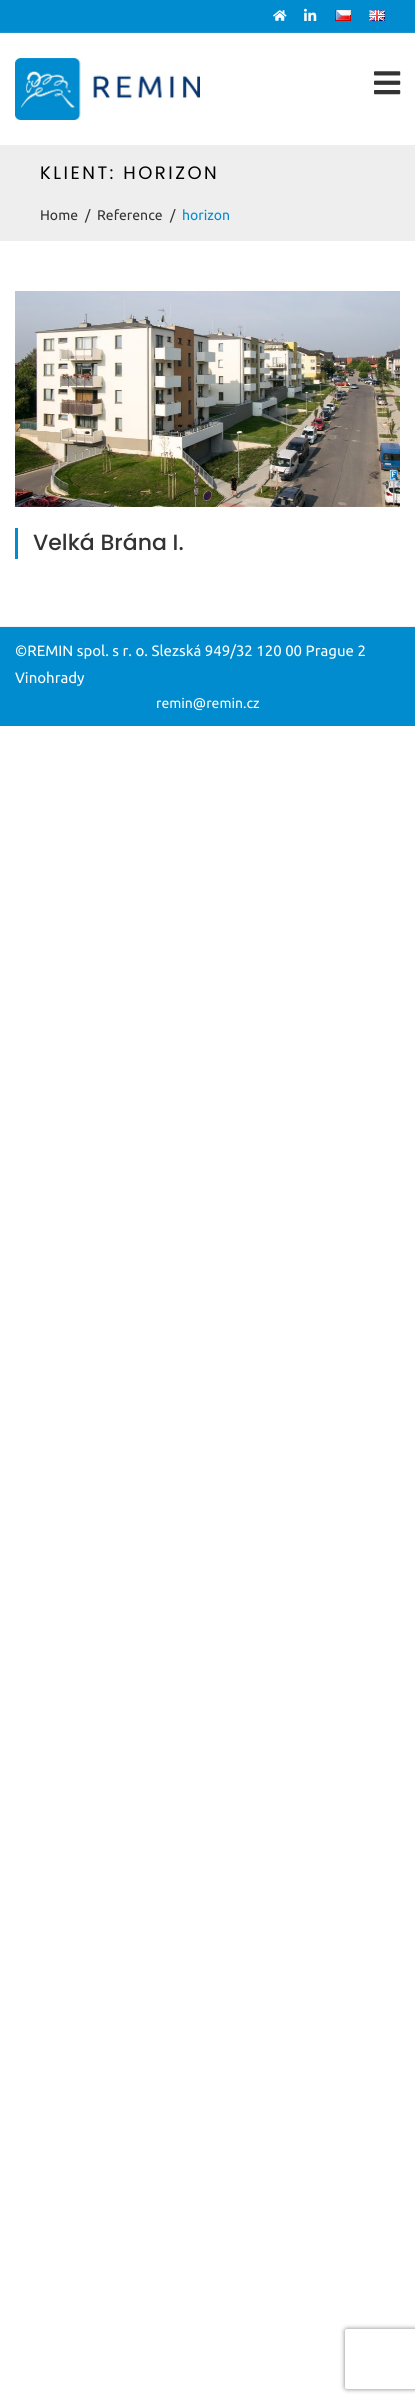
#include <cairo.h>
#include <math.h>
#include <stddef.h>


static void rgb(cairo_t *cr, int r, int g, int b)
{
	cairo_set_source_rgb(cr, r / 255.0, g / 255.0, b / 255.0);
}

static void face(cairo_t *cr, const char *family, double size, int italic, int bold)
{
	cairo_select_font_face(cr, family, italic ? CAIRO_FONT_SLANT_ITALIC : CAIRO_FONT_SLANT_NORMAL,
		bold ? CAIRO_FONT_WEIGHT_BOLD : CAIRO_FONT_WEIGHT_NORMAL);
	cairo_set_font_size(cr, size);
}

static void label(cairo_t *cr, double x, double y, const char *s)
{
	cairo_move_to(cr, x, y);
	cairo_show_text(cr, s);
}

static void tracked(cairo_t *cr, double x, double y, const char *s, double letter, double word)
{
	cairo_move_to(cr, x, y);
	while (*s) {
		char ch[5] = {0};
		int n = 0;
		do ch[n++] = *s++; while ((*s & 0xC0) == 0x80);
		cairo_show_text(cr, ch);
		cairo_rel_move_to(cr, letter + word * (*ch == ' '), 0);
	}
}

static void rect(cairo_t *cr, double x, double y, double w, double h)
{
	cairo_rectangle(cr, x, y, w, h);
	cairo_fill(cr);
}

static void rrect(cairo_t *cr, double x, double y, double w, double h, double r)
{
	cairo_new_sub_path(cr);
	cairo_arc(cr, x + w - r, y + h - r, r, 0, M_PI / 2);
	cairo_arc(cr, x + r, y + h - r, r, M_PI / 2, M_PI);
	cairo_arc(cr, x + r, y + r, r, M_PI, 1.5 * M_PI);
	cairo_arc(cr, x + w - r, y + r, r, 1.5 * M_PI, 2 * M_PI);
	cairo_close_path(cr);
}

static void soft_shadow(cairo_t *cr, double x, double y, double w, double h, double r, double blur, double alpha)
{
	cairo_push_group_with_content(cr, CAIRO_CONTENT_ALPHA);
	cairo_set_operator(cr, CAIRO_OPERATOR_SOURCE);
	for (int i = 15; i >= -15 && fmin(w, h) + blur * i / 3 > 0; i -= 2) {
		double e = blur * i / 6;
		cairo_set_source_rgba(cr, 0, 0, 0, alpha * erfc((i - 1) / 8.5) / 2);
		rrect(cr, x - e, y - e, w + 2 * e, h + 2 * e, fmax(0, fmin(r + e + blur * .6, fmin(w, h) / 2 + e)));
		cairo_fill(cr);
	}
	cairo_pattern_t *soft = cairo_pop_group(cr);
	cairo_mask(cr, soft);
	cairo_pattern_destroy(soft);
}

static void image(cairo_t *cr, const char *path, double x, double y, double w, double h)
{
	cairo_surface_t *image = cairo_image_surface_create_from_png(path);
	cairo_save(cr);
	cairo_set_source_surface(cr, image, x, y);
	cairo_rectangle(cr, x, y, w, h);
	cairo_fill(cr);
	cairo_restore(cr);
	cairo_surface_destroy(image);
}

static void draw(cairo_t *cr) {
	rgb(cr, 255, 255, 255);
	cairo_paint(cr);
	rgb(cr, 0, 140, 206);
	rect(cr, 0, 0, 415, 33);
	image(cr, "image0.png", 273, 10, 14, 11);
	image(cr, "image1.png", 304, 8, 13, 13);
	image(cr, "image2.png", 335, 10, 16, 11);
	image(cr, "image3.png", 369, 10, 16, 11);
	cairo_save(cr);
	cairo_rectangle(cr, 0, 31, 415, 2);
	cairo_clip(cr);
	rgb(cr, 200, 192, 192);
	soft_shadow(cr, 1, 34, 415, 112, 0, 1.5, 1);
	cairo_restore(cr);
	image(cr, "image4.png", 15, 58, 185, 62);
	image(cr, "image5.png", 374, 71, 27, 24);
	rgb(cr, 238, 238, 238);
	rect(cr, 0, 145, 415, 96);
	face(cr, "Poppins", 18, 0, 0);
	rgb(cr, 0, 0, 0);
	tracked(cr, 40, 179, "KLIENT: HORIZON", 2.5, 0);
	face(cr, "Ubuntu", 14, 0, 0);
	rgb(cr, 51, 51, 51);
	label(cr, 40, 220, "Home");
	label(cr, 85, 220, "/");
	label(cr, 97, 220, "Reference");
	label(cr, 170, 220, "/");
	rgb(cr, 0, 140, 206);
	label(cr, 182, 220, "horizon");
	image(cr, "image6.png", 15, 291, 385, 216);
	rect(cr, 15, 528, 3, 31);
	face(cr, "Poppins Medium", 22, 0, 0);
	rgb(cr, 51, 51, 51);
	label(cr, 33, 550, "Velká Brána I.");
	rgb(cr, 0, 140, 206);
	rect(cr, 0, 627, 415, 99);
	rgb(cr, 242, 242, 242);
	rect(cr, 0, 626, 415, 1);
	face(cr, "Ubuntu", 15, 0, 0);
	rgb(cr, 255, 255, 255);
	label(cr, 15, 656, "©REMIN spol. s r. o. Slezská 949/32 120 00 Prague 2");
	label(cr, 15, 683, "Vinohrady");
	face(cr, "Ubuntu", 14, 0, 0);
	label(cr, 156, 708, "remin@remin.cz");
	cairo_save(cr);
	cairo_set_fill_rule(cr, CAIRO_FILL_RULE_EVEN_ODD);
	cairo_new_path(cr);
	cairo_move_to(cr, 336, 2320);
	cairo_line_to(cr, 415, 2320);
	cairo_line_to(cr, 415, 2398);
	cairo_line_to(cr, 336, 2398);
	cairo_close_path(cr);
	cairo_move_to(cr, 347, 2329);
	cairo_line_to(cr, 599, 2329);
	cairo_curve_to(cr, 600, 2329, 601, 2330, 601, 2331);
	cairo_line_to(cr, 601, 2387);
	cairo_curve_to(cr, 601, 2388, 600, 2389, 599, 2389);
	cairo_line_to(cr, 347, 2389);
	cairo_curve_to(cr, 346, 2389, 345, 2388, 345, 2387);
	cairo_line_to(cr, 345, 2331);
	cairo_curve_to(cr, 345, 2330, 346, 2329, 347, 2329);
	cairo_close_path(cr);
	cairo_clip(cr);
	rgb(cr, 128, 128, 128);
	soft_shadow(cr, 345, 2329, 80, 60, 2, 2.5, 1);
	cairo_restore(cr);
}

int main(void) {
	cairo_surface_t *surface = cairo_image_surface_create(CAIRO_FORMAT_RGB24, 415, 2403);
	cairo_t *cr = cairo_create(surface);
	cairo_font_options_t *options = cairo_font_options_create();
	cairo_font_options_set_hint_metrics(options, CAIRO_HINT_METRICS_OFF);
	cairo_font_options_set_hint_style(options, CAIRO_HINT_STYLE_NONE);
	cairo_set_font_options(cr, options);
	cairo_set_miter_limit(cr, 4);
	draw(cr);
	cairo_surface_write_to_png(surface, "render.png");
	cairo_font_options_destroy(options);
	cairo_destroy(cr);
	cairo_surface_destroy(surface);
	return 0;
}
